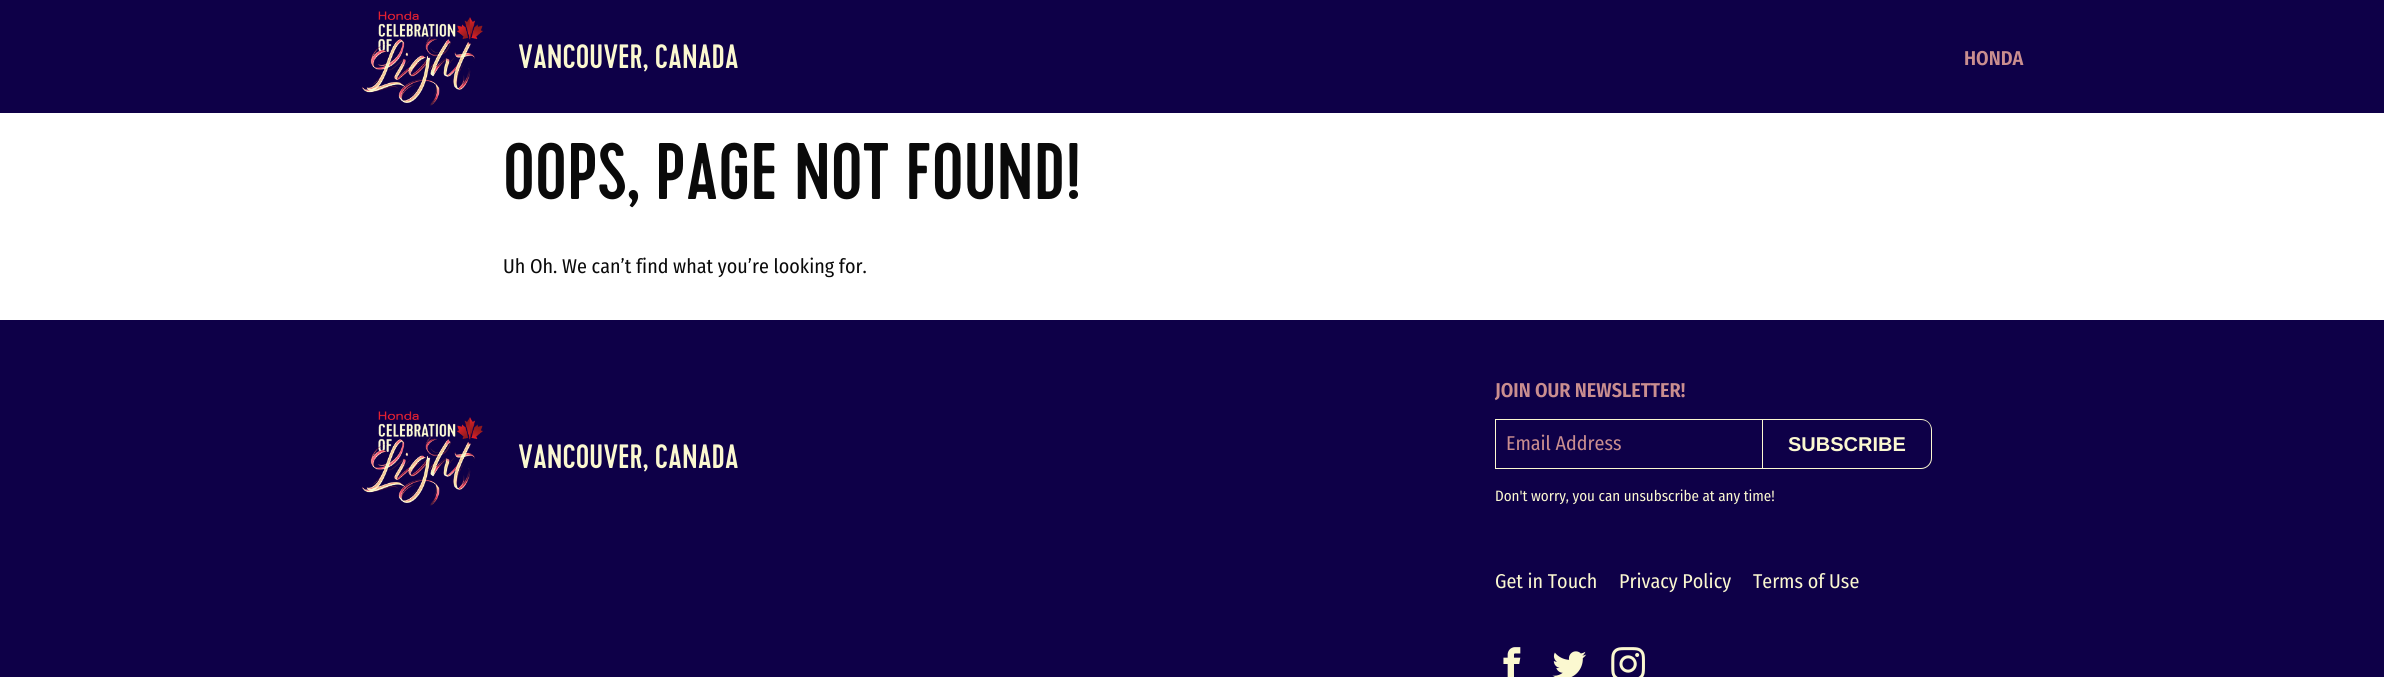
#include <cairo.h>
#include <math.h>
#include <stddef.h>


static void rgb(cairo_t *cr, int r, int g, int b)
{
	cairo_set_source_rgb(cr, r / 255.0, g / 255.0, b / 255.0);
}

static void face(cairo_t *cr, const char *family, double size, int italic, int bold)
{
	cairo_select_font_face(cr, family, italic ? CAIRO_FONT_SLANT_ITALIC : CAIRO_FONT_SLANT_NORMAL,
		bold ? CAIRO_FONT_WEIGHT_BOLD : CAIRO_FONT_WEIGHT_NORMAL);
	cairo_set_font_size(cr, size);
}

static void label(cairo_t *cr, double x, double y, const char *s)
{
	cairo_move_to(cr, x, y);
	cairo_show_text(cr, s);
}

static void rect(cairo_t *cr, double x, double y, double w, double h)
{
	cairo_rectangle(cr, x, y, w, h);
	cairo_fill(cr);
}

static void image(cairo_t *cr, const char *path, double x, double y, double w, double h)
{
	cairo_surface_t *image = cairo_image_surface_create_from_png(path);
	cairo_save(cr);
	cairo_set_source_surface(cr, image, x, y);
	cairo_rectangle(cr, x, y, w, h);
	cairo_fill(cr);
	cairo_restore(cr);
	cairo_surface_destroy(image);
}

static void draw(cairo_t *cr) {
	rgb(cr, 255, 255, 255);
	cairo_paint(cr);
	rgb(cr, 14, 0, 72);
	rect(cr, 0, 0, 2384, 113);
	image(cr, "image0.png", 362, 11, 121, 95);
	face(cr, "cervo", 33.75, 0, 0);
	rgb(cr, 251, 248, 208);
	label(cr, 518, 68, "VANCOUVER, CANADA");
	face(cr, "Fira Sans Condensed SemiBold", 20, 0, 0);
	rgb(cr, 202, 142, 143);
	label(cr, 1964, 65, "HONDA");
	face(cr, "cervo", 80, 0, 0);
	rgb(cr, 10, 10, 10);
	label(cr, 503, 199, "OOPS, PAGE NOT FOUND!");
	face(cr, "Fira Sans Condensed", 20, 0, 0);
	label(cr, 503, 273, "Uh Oh. We can’t find what you’re looking for.");
	rgb(cr, 14, 0, 72);
	rect(cr, 0, 320, 2384, 357);
	image(cr, "image0.png", 362, 411, 121, 95);
	face(cr, "cervo", 33.75, 0, 0);
	rgb(cr, 251, 248, 208);
	label(cr, 518, 468, "VANCOUVER, CANADA");
	face(cr, "Fira Sans Condensed SemiBold", 20, 0, 0);
	rgb(cr, 202, 142, 143);
	label(cr, 1495, 397, "JOIN OUR NEWSLETTER!");
	cairo_rectangle(cr, 1495.5, 419.5, 267, 49);
	rgb(cr, 251, 248, 208);
	cairo_set_line_width(cr, 1);
	cairo_stroke(cr);
	face(cr, "Fira Sans Condensed", 20, 0, 0);
	rgb(cr, 202, 142, 143);
	label(cr, 1506, 450, "Email Address");
	face(cr, "Fira Sans Condensed", 15, 0, 0);
	rgb(cr, 251, 248, 208);
	label(cr, 1495, 501, "Don't worry, you can unsubscribe at any time!");
	cairo_set_fill_rule(cr, CAIRO_FILL_RULE_EVEN_ODD);
	cairo_new_path(cr);
	cairo_move_to(cr, 1762, 419);
	cairo_line_to(cr, 1921, 419);
	cairo_curve_to(cr, 1927, 419, 1932, 424, 1932, 430);
	cairo_line_to(cr, 1932, 458);
	cairo_curve_to(cr, 1932, 464, 1927, 469, 1921, 469);
	cairo_line_to(cr, 1762, 469);
	cairo_close_path(cr);
	cairo_move_to(cr, 1762, 420);
	cairo_line_to(cr, 1921, 420);
	cairo_curve_to(cr, 1927, 420, 1931, 424, 1931, 430);
	cairo_line_to(cr, 1931, 458);
	cairo_curve_to(cr, 1931, 463, 1927, 468, 1921, 468);
	cairo_line_to(cr, 1762, 468);
	cairo_close_path(cr);
	cairo_fill(cr);
	face(cr, "Liberation Sans", 20, 0, 1);
	label(cr, 1788, 451, "SUBSCRIBE");
	face(cr, "Fira Sans Condensed", 20, 0, 0);
	label(cr, 1495, 588, "Get in Touch");
	label(cr, 1619, 588, "Privacy Policy");
	label(cr, 1753, 588, "Terms of Use");
	image(cr, "image1.png", 1503, 647, 18, 30);
	image(cr, "image2.png", 1552, 651, 35, 26);
	image(cr, "image3.png", 1611, 647, 34, 30);
}

int main(void) {
	cairo_surface_t *surface = cairo_image_surface_create(CAIRO_FORMAT_RGB24, 2384, 677);
	cairo_t *cr = cairo_create(surface);
	cairo_font_options_t *options = cairo_font_options_create();
	cairo_font_options_set_hint_metrics(options, CAIRO_HINT_METRICS_OFF);
	cairo_font_options_set_hint_style(options, CAIRO_HINT_STYLE_NONE);
	cairo_set_font_options(cr, options);
	cairo_set_miter_limit(cr, 4);
	draw(cr);
	cairo_surface_write_to_png(surface, "render.png");
	cairo_font_options_destroy(options);
	cairo_destroy(cr);
	cairo_surface_destroy(surface);
	return 0;
}
